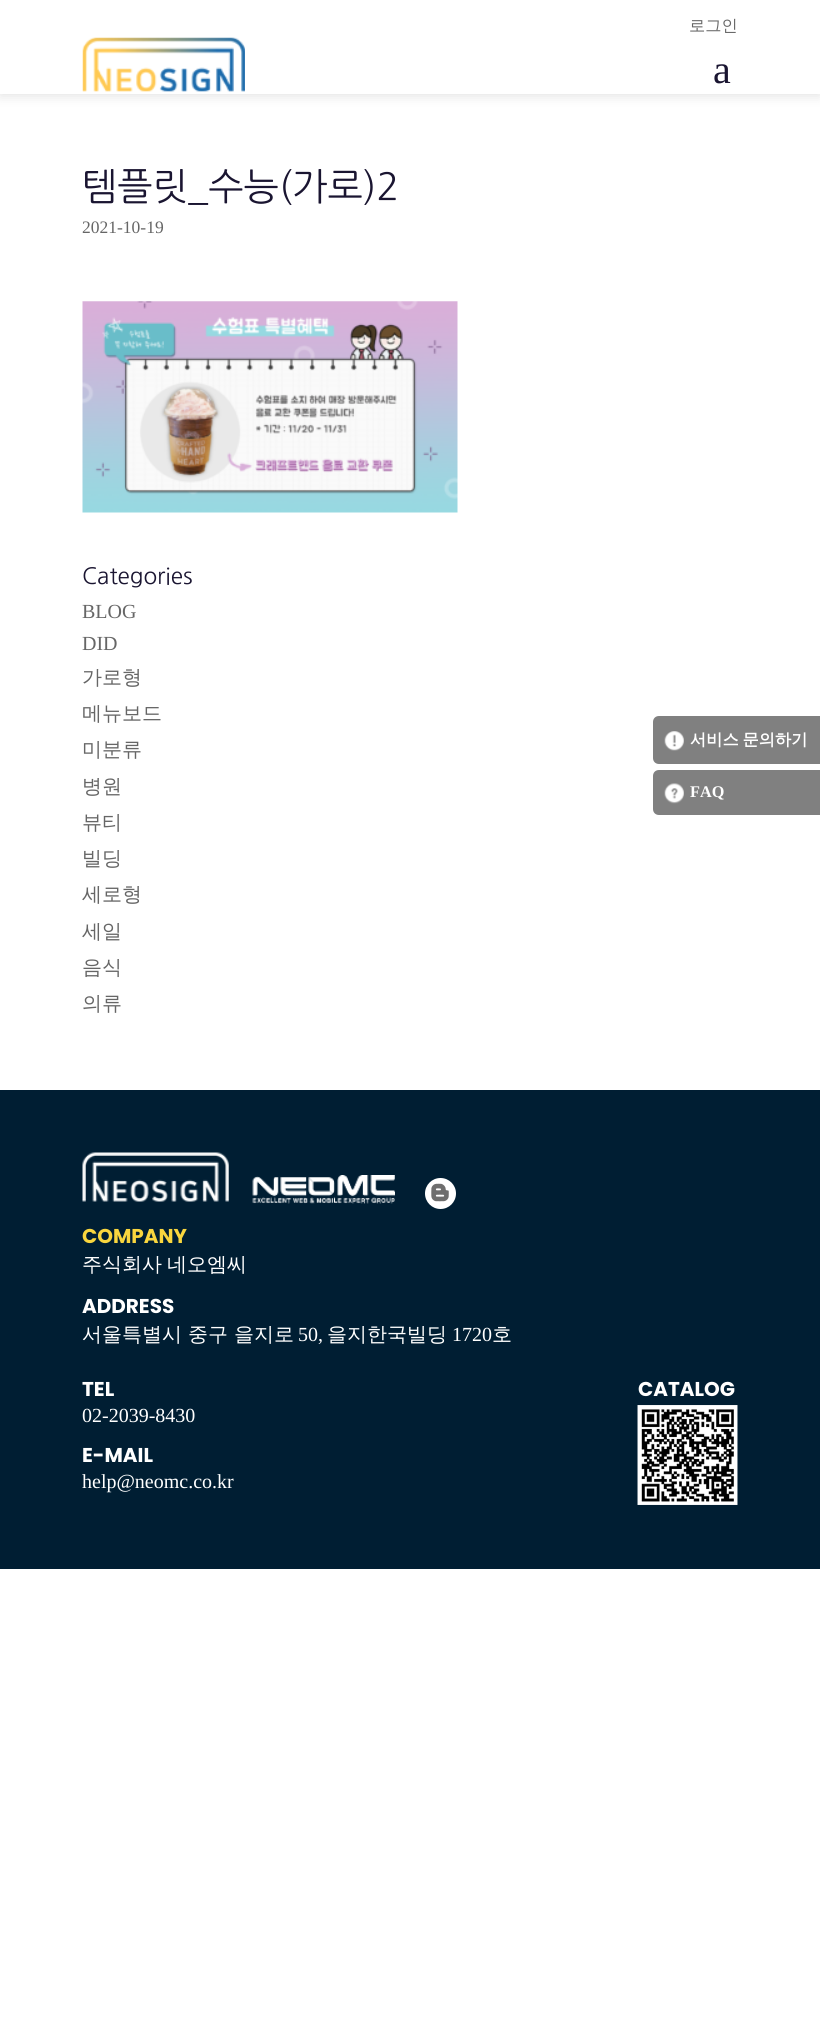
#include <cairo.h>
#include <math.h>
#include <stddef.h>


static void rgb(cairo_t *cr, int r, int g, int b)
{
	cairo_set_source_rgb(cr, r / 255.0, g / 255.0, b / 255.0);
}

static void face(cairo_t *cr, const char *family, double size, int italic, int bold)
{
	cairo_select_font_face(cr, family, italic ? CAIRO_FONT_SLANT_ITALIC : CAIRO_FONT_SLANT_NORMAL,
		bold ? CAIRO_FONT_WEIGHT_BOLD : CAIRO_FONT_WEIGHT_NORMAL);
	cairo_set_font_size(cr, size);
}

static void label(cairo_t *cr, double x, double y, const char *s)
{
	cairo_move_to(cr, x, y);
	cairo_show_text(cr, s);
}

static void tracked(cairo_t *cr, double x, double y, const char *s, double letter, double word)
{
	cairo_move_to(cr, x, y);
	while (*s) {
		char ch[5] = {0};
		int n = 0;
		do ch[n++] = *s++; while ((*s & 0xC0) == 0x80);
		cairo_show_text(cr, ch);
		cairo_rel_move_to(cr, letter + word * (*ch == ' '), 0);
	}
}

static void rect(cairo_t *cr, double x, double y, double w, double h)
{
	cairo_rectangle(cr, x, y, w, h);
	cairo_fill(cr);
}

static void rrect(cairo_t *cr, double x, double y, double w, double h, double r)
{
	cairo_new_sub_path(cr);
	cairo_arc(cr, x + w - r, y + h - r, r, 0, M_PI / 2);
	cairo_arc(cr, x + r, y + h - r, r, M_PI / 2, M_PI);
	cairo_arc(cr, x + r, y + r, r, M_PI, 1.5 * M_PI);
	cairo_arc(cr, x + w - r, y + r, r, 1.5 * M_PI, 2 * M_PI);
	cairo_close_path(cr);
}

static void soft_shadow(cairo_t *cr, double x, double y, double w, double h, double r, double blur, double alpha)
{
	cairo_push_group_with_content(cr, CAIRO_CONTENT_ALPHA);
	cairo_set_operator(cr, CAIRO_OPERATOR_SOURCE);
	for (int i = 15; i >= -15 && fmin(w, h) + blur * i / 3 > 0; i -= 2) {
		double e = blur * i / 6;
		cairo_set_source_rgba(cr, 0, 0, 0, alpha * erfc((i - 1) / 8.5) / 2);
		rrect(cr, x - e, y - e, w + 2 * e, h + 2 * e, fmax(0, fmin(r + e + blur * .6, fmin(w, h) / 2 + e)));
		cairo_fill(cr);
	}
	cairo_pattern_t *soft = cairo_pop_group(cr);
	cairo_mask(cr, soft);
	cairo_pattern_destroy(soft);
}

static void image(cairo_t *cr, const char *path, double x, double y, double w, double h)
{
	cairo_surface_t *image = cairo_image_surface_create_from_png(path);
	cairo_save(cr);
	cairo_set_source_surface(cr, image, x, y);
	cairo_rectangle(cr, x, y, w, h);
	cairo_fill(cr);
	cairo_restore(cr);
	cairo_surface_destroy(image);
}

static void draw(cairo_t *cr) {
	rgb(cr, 255, 255, 255);
	cairo_paint(cr);
	rgb(cr, 51, 51, 51);
	soft_shadow(cr, 0, 3, 820, 93, 0, 6, 0.14);
	rgb(cr, 255, 255, 255);
	rect(cr, 0, 0, 820, 94);
	face(cr, "WenQuanYi Zen Hei Medium", 16.25, 0, 0);
	rgb(cr, 102, 102, 102);
	label(cr, 689, 31, "로그인");
	image(cr, "image0.png", 82, 37, 163, 55);
	face(cr, "Liberation Serif", 40, 0, 0);
	rgb(cr, 26, 21, 49);
	label(cr, 713, 83, "a");
	face(cr, "NanumGothic", 37.5, 0, 0);
	label(cr, 82, 200, "템플릿_수능(가로)2");
	face(cr, "Liberation Serif", 17.5, 0, 0);
	rgb(cr, 102, 102, 102);
	label(cr, 82, 233, "2021-10-19");
	image(cr, "image1.png", 82, 301, 376, 212);
	face(cr, "NanumGothic", 22.5, 0, 0);
	rgb(cr, 26, 21, 49);
	label(cr, 82, 584, "Categories");
	face(cr, "Liberation Serif", 20, 0, 0);
	rgb(cr, 102, 102, 102);
	label(cr, 82, 618, "BLOG");
	label(cr, 82, 650, "DID");
	face(cr, "WenQuanYi Zen Hei Medium", 20, 0, 0);
	label(cr, 82, 684, "가로형");
	label(cr, 82, 720, "메뉴보드");
	label(cr, 82, 756, "미분류");
	label(cr, 82, 793, "병원");
	label(cr, 82, 829, "뷰티");
	label(cr, 82, 865, "빌딩");
	label(cr, 82, 901, "세로형");
	label(cr, 82, 938, "세일");
	label(cr, 82, 974, "음식");
	label(cr, 82, 1010, "의류");
	rgb(cr, 0, 30, 51);
	rect(cr, 0, 1090, 820, 479);
	rgb(cr, 128, 128, 128);
	cairo_new_path(cr);
	cairo_move_to(cr, 659, 716);
	cairo_line_to(cr, 820, 716);
	cairo_line_to(cr, 820, 764);
	cairo_line_to(cr, 659, 764);
	cairo_curve_to(cr, 655.5, 764, 653, 761.5, 653, 758);
	cairo_line_to(cr, 653, 722);
	cairo_curve_to(cr, 653, 718.5, 655.5, 716, 659, 716);
	cairo_close_path(cr);
	cairo_fill(cr);
	image(cr, "image2.png", 664, 731, 20, 20);
	face(cr, "WenQuanYi Zen Hei", 16.25, 0, 1);
	rgb(cr, 255, 255, 255);
	tracked(cr, 690, 745, "서비스 문의하기", 0, -1);
	rgb(cr, 128, 128, 128);
	cairo_new_path(cr);
	cairo_move_to(cr, 659, 770);
	cairo_line_to(cr, 820, 770);
	cairo_line_to(cr, 820, 815);
	cairo_line_to(cr, 659, 815);
	cairo_curve_to(cr, 655.5, 815, 653, 812.5, 653, 809);
	cairo_line_to(cr, 653, 776);
	cairo_curve_to(cr, 653, 772.5, 655.5, 770, 659, 770);
	cairo_close_path(cr);
	cairo_fill(cr);
	image(cr, "image3.png", 664, 783, 20, 21);
	face(cr, "Liberation Serif", 16.25, 0, 1);
	rgb(cr, 255, 255, 255);
	label(cr, 690, 797, "FAQ");
	face(cr, "Poppins", 20, 0, 1);
	label(cr, 82, 1396, "TEL");
	face(cr, "Liberation Serif", 20, 0, 0);
	label(cr, 82, 1422, "02-2039-8430");
	face(cr, "Poppins", 20, 0, 1);
	label(cr, 638, 1396, "CATALOG");
	image(cr, "image4.png", 637, 1405, 101, 100);
	label(cr, 82, 1462, "E-MAIL");
	face(cr, "Liberation Serif", 20, 0, 0);
	label(cr, 82, 1488, "help@neomc.co.kr");
	face(cr, "Poppins", 20, 0, 1);
	rgb(cr, 249, 214, 62);
	label(cr, 82, 1243, "COMPANY");
	face(cr, "WenQuanYi Zen Hei Medium", 20, 0, 0);
	rgb(cr, 255, 255, 255);
	tracked(cr, 82, 1271, "주식회사 네오엠씨", 0, -1);
	face(cr, "Poppins", 20, 0, 1);
	label(cr, 82, 1313, "ADDRESS");
	face(cr, "WenQuanYi Zen Hei Medium", 20, 0, 0);
	label(cr, 82, 1341, "서울특별시 중구 을지로");
	face(cr, "Liberation Serif", 20, 0, 0);
	label(cr, 298, 1341, "50,");
	face(cr, "WenQuanYi Zen Hei Medium", 20, 0, 0);
	label(cr, 327, 1341, "을지한국빌딩");
	face(cr, "Liberation Serif", 20, 0, 0);
	label(cr, 452, 1341, "1720");
	face(cr, "WenQuanYi Zen Hei Medium", 20, 0, 0);
	label(cr, 492, 1341, "호");
	image(cr, "image5.png", 82, 1152, 147, 50);
	image(cr, "image6.png", 252, 1175, 143, 29);
	cairo_arc(cr, 440.5, 1193.5, 15.5, 0, 2 * M_PI);
	cairo_fill(cr);
	image(cr, "image7.png", 431, 1183, 18, 19);
}

int main(void) {
	cairo_surface_t *surface = cairo_image_surface_create(CAIRO_FORMAT_RGB24, 820, 2027);
	cairo_t *cr = cairo_create(surface);
	cairo_font_options_t *options = cairo_font_options_create();
	cairo_font_options_set_hint_metrics(options, CAIRO_HINT_METRICS_OFF);
	cairo_font_options_set_hint_style(options, CAIRO_HINT_STYLE_NONE);
	cairo_set_font_options(cr, options);
	cairo_set_miter_limit(cr, 4);
	draw(cr);
	cairo_surface_write_to_png(surface, "render.png");
	cairo_font_options_destroy(options);
	cairo_destroy(cr);
	cairo_surface_destroy(surface);
	return 0;
}
